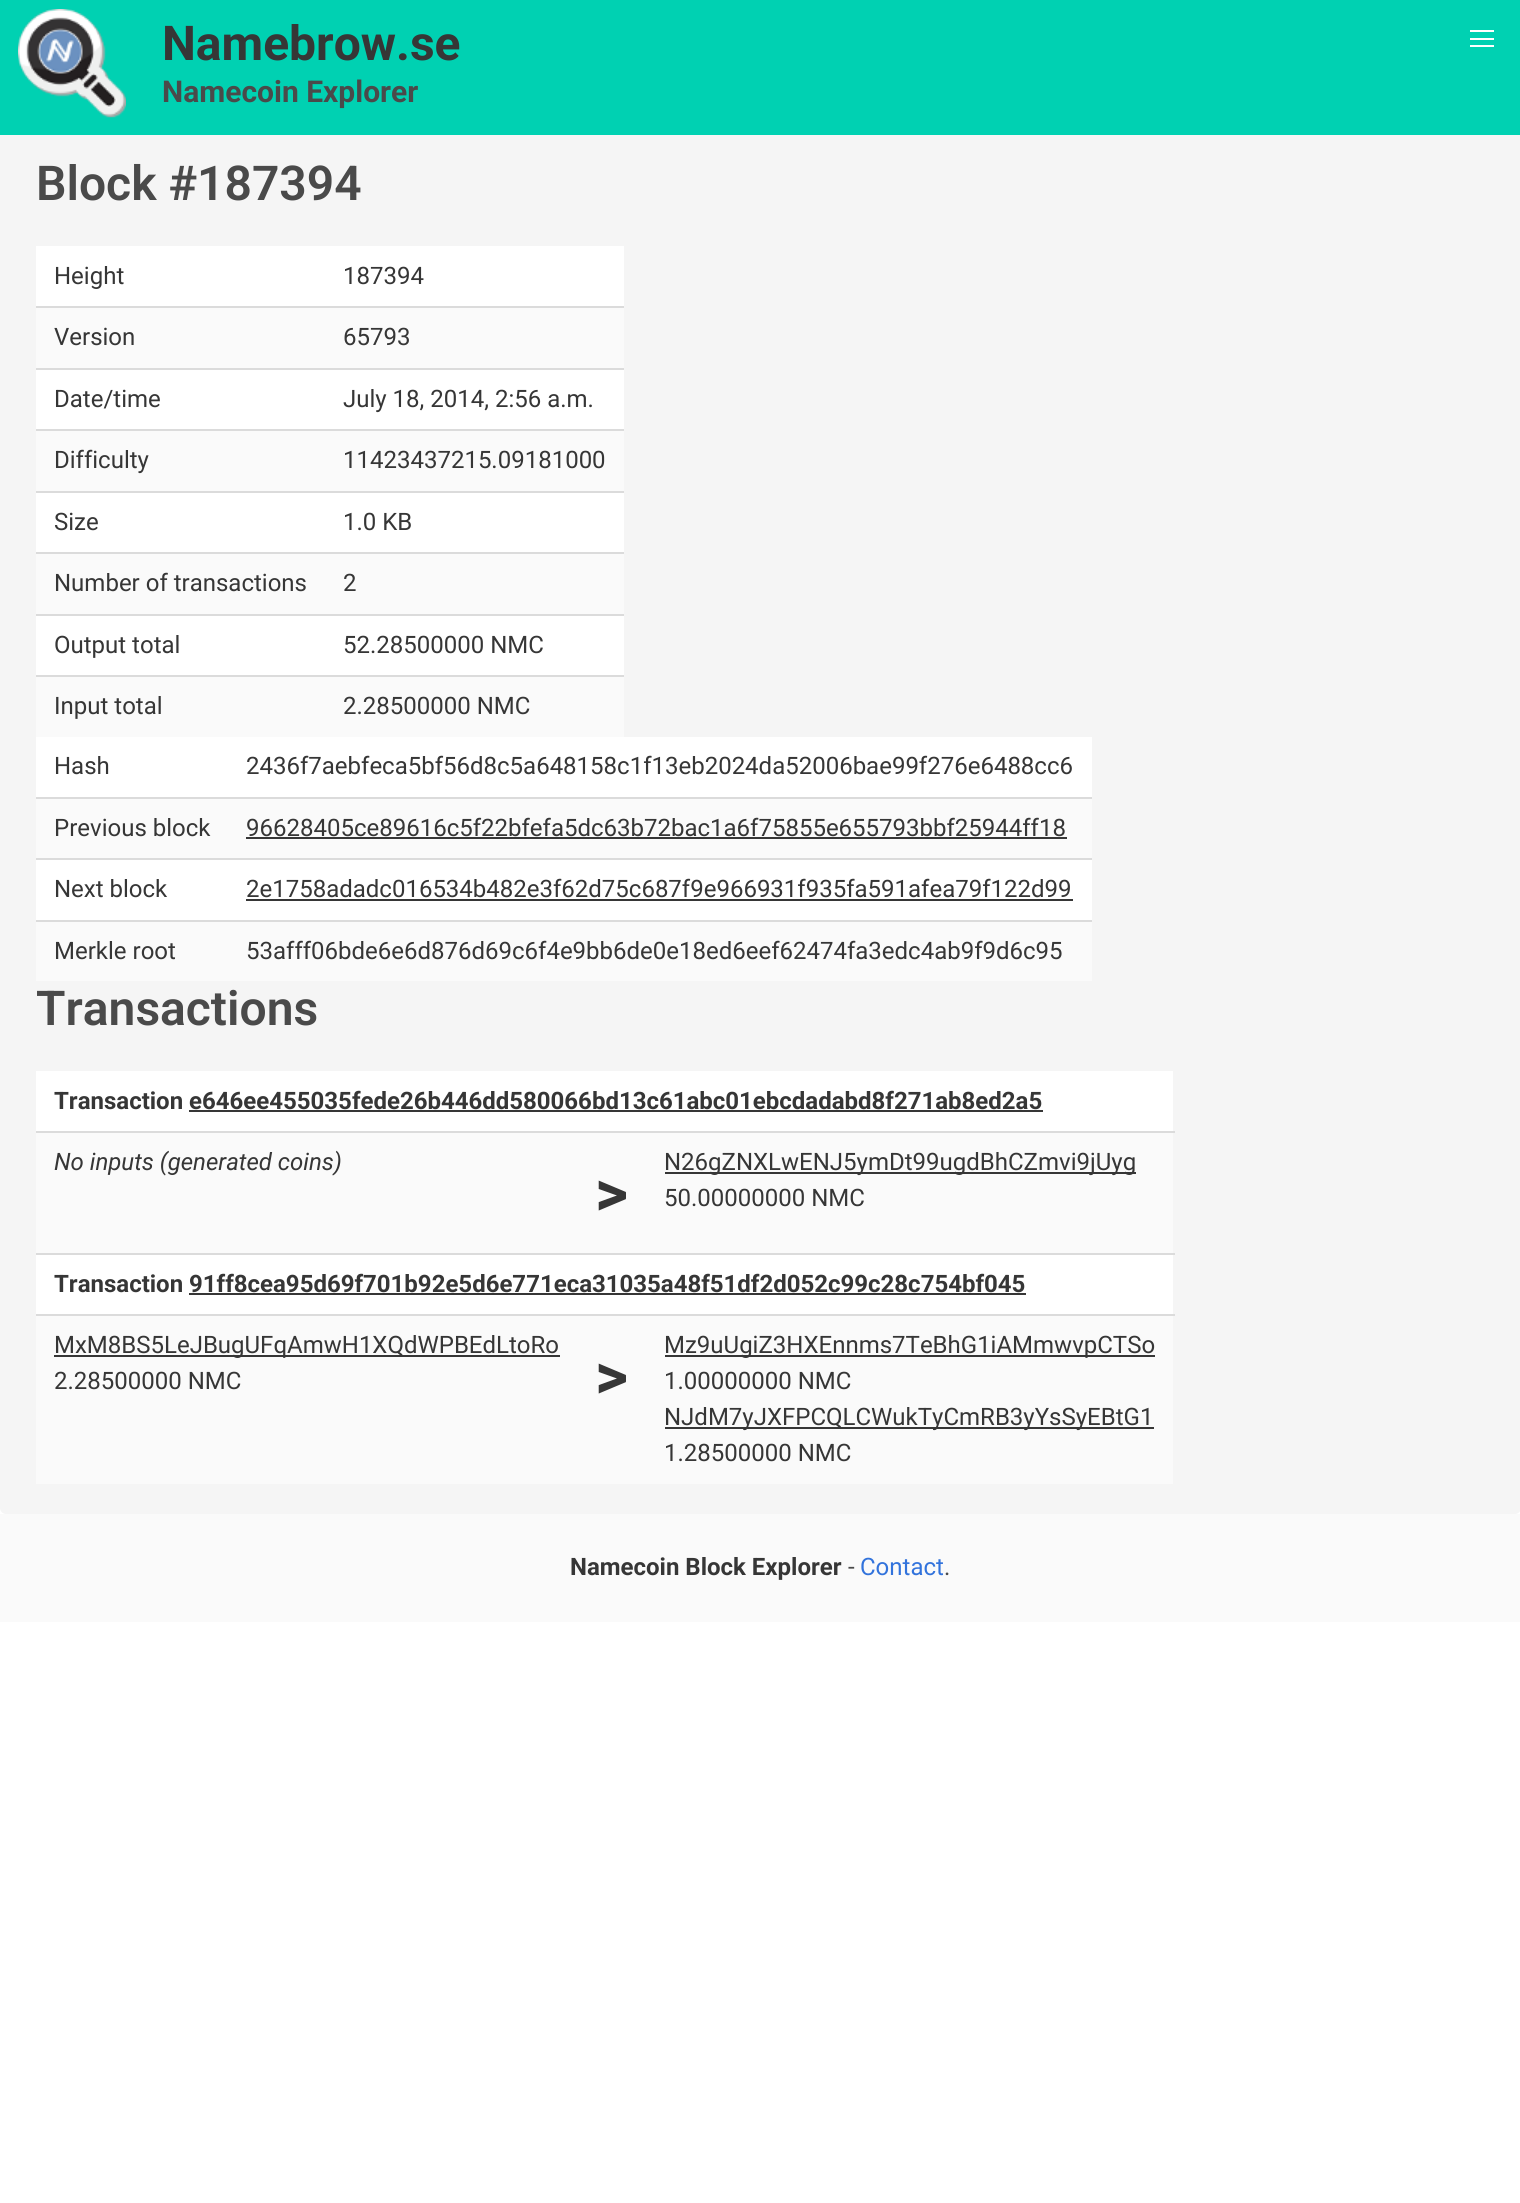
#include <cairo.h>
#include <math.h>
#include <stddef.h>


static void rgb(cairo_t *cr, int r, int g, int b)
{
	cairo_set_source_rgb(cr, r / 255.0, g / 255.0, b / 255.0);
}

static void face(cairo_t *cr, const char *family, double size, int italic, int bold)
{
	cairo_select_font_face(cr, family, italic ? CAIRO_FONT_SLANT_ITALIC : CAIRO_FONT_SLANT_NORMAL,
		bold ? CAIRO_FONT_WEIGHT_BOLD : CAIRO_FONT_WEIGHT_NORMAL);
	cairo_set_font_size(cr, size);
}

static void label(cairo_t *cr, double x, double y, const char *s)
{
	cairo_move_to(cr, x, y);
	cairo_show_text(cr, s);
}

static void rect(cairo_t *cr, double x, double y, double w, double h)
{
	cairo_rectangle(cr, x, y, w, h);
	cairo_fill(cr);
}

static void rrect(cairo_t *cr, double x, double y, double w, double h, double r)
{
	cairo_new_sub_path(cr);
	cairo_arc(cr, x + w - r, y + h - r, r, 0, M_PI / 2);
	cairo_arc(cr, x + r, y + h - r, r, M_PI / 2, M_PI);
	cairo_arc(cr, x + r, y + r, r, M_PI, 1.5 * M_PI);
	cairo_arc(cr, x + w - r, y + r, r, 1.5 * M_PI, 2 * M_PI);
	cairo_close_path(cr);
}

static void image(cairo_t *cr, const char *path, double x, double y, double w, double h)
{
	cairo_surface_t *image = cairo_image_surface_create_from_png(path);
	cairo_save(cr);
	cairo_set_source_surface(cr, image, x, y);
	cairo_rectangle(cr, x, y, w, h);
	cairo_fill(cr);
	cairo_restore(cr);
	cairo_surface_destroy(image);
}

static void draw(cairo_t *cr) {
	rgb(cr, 255, 255, 255);
	cairo_paint(cr);
	rgb(cr, 245, 245, 245);
	rrect(cr, 0, 126, 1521, 1388, 6);
	cairo_fill(cr);
	rgb(cr, 0, 209, 178);
	rect(cr, 0, 0, 1520, 135);
	image(cr, "image0.png", 18, 9, 108, 109);
	face(cr, "Roboto", 48, 0, 1);
	rgb(cr, 54, 54, 54);
	label(cr, 162, 60, "Namebrow.se");
	face(cr, "Roboto", 30, 0, 1);
	rgb(cr, 74, 74, 74);
	label(cr, 162, 102, "Namecoin Explorer");
	rgb(cr, 255, 255, 255);
	rect(cr, 1470, 30, 24, 2);
	rect(cr, 1470, 38, 24, 2);
	rect(cr, 1470, 45, 24, 2);
	face(cr, "Roboto SemiBold", 48, 0, 0);
	rgb(cr, 74, 74, 74);
	label(cr, 36, 200, "Block #187394");
	rgb(cr, 255, 255, 255);
	rect(cr, 36, 246, 588, 429);
	face(cr, "Roboto", 24, 0, 0);
	rgb(cr, 54, 54, 54);
	label(cr, 54, 284, "Height");
	rgb(cr, 219, 219, 219);
	rect(cr, 36, 306, 588, 2);
	rgb(cr, 54, 54, 54);
	label(cr, 343, 284, "187394");
	rgb(cr, 250, 250, 250);
	rect(cr, 36, 308, 588, 60);
	rgb(cr, 54, 54, 54);
	label(cr, 54, 345, "Version");
	rgb(cr, 219, 219, 219);
	rect(cr, 36, 368, 588, 2);
	rgb(cr, 54, 54, 54);
	label(cr, 343, 345, "65793");
	label(cr, 54, 407, "Date/time");
	rgb(cr, 219, 219, 219);
	rect(cr, 36, 429, 588, 2);
	rgb(cr, 54, 54, 54);
	label(cr, 343, 407, "July 18, 2014, 2:56 a.m.");
	rgb(cr, 250, 250, 250);
	rect(cr, 36, 431, 588, 60);
	rgb(cr, 54, 54, 54);
	label(cr, 54, 468, "Difficulty");
	rgb(cr, 219, 219, 219);
	rect(cr, 36, 491, 588, 2);
	rgb(cr, 54, 54, 54);
	label(cr, 343, 468, "11423437215.09181000");
	label(cr, 54, 530, "Size");
	rgb(cr, 219, 219, 219);
	rect(cr, 36, 552, 588, 2);
	rgb(cr, 54, 54, 54);
	label(cr, 343, 530, "1.0 KB");
	rgb(cr, 250, 250, 250);
	rect(cr, 36, 554, 588, 60);
	rgb(cr, 54, 54, 54);
	label(cr, 54, 591, "Number of transactions");
	rgb(cr, 219, 219, 219);
	rect(cr, 36, 614, 588, 2);
	rgb(cr, 54, 54, 54);
	label(cr, 343, 591, "2");
	label(cr, 54, 653, "Output total");
	rgb(cr, 219, 219, 219);
	rect(cr, 36, 675, 588, 2);
	rgb(cr, 54, 54, 54);
	label(cr, 343, 653, "52.28500000 NMC");
	rgb(cr, 250, 250, 250);
	rect(cr, 36, 677, 588, 60);
	rgb(cr, 54, 54, 54);
	label(cr, 54, 714, "Input total");
	label(cr, 343, 714, "2.28500000 NMC");
	rgb(cr, 255, 255, 255);
	rect(cr, 36, 737, 1056, 183);
	rgb(cr, 54, 54, 54);
	label(cr, 54, 774, "Hash");
	rgb(cr, 219, 219, 219);
	rect(cr, 36, 797, 1056, 2);
	rgb(cr, 54, 54, 54);
	label(cr, 246, 774, "2436f7aebfeca5bf56d8c5a648158c1f13eb2024da52006bae99f276e6488cc6");
	rgb(cr, 250, 250, 250);
	rect(cr, 36, 799, 1056, 59);
	rgb(cr, 54, 54, 54);
	label(cr, 54, 836, "Previous block");
	rgb(cr, 219, 219, 219);
	rect(cr, 36, 858, 1056, 2);
	rgb(cr, 54, 54, 54);
	label(cr, 246, 836, "96628405ce89616c5f22bfefa5dc63b72bac1a6f75855e655793bbf25944ff18");
	rect(cr, 246, 837, 821, 2);
	label(cr, 54, 897, "Next block");
	rgb(cr, 219, 219, 219);
	rect(cr, 36, 920, 1056, 2);
	rgb(cr, 54, 54, 54);
	label(cr, 246, 897, "2e1758adadc016534b482e3f62d75c687f9e966931f935fa591afea79f122d99");
	rect(cr, 246, 899, 827, 2);
	rgb(cr, 250, 250, 250);
	rect(cr, 36, 922, 1056, 59);
	rgb(cr, 54, 54, 54);
	label(cr, 54, 959, "Merkle root");
	label(cr, 246, 959, "53afff06bde6e6d876d69c6f4e9bb6de0e18ed6eef62474fa3edc4ab9f9d6c95");
	face(cr, "Roboto SemiBold", 48, 0, 0);
	rgb(cr, 74, 74, 74);
	label(cr, 36, 1025, "Transactions");
	rgb(cr, 255, 255, 255);
	rect(cr, 36, 1071, 1137, 243);
	rgb(cr, 219, 219, 219);
	rect(cr, 36, 1131, 1139, 2);
	face(cr, "Roboto", 24, 0, 1);
	rgb(cr, 54, 54, 54);
	label(cr, 54, 1109, "Transaction e646ee455035fede26b446dd580066bd13c61abc01ebcdadabd8f271ab8ed2a5");
	rect(cr, 189, 1110, 854, 2);
	rgb(cr, 250, 250, 250);
	rect(cr, 36, 1133, 1137, 120);
	face(cr, "Roboto", 24, 1, 0);
	rgb(cr, 54, 54, 54);
	label(cr, 54, 1170, "No inputs (generated coins)");
	face(cr, "Roboto", 64, 0, 1);
	label(cr, 595, 1215, ">");
	rgb(cr, 219, 219, 219);
	rect(cr, 36, 1253, 1139, 2);
	rgb(cr, 54, 54, 54);
	rect(cr, 665, 1172, 471, 2);
	face(cr, "Roboto", 24, 0, 0);
	label(cr, 664, 1170, "N26gZNXLwENJ5ymDt99ugdBhCZmvi9jUyg");
	label(cr, 664, 1206, "50.00000000 NMC");
	rgb(cr, 219, 219, 219);
	rect(cr, 36, 1314, 1139, 2);
	face(cr, "Roboto", 24, 0, 1);
	rgb(cr, 54, 54, 54);
	label(cr, 54, 1292, "Transaction 91ff8cea95d69f701b92e5d6e771eca31035a48f51df2d052c99c28c754bf045");
	rect(cr, 189, 1293, 837, 2);
	rgb(cr, 250, 250, 250);
	rect(cr, 36, 1316, 1137, 168);
	rgb(cr, 54, 54, 54);
	rect(cr, 54, 1355, 506, 2);
	face(cr, "Roboto", 24, 0, 0);
	label(cr, 54, 1353, "MxM8BS5LeJBugUFqAmwH1XQdWPBEdLtoRo");
	label(cr, 54, 1389, "2.28500000 NMC");
	face(cr, "Roboto", 64, 0, 1);
	label(cr, 595, 1398, ">");
	rect(cr, 665, 1355, 490, 2);
	face(cr, "Roboto", 24, 0, 0);
	label(cr, 664, 1353, "Mz9uUgiZ3HXEnnms7TeBhG1iAMmwvpCTSo");
	label(cr, 664, 1389, "1.00000000 NMC");
	rect(cr, 665, 1427, 489, 2);
	label(cr, 664, 1425, "NJdM7yJXFPCQLCWukTyCmRB3yYsSyEBtG1");
	label(cr, 664, 1461, "1.28500000 NMC");
	rgb(cr, 250, 250, 250);
	rect(cr, 0, 1514, 1520, 108);
	face(cr, "Roboto", 24, 0, 1);
	rgb(cr, 54, 54, 54);
	label(cr, 570, 1575, "Namecoin Block Explorer");
	face(cr, "Roboto", 24, 0, 0);
	rgb(cr, 74, 74, 74);
	label(cr, 848, 1575, "-");
	rgb(cr, 50, 115, 220);
	label(cr, 860, 1575, "Contact");
	rgb(cr, 74, 74, 74);
	label(cr, 944, 1575, ".");
}

int main(void) {
	cairo_surface_t *surface = cairo_image_surface_create(CAIRO_FORMAT_RGB24, 1520, 2203);
	cairo_t *cr = cairo_create(surface);
	cairo_font_options_t *options = cairo_font_options_create();
	cairo_font_options_set_hint_metrics(options, CAIRO_HINT_METRICS_OFF);
	cairo_font_options_set_hint_style(options, CAIRO_HINT_STYLE_NONE);
	cairo_set_font_options(cr, options);
	cairo_set_miter_limit(cr, 4);
	draw(cr);
	cairo_surface_write_to_png(surface, "render.png");
	cairo_font_options_destroy(options);
	cairo_destroy(cr);
	cairo_surface_destroy(surface);
	return 0;
}
